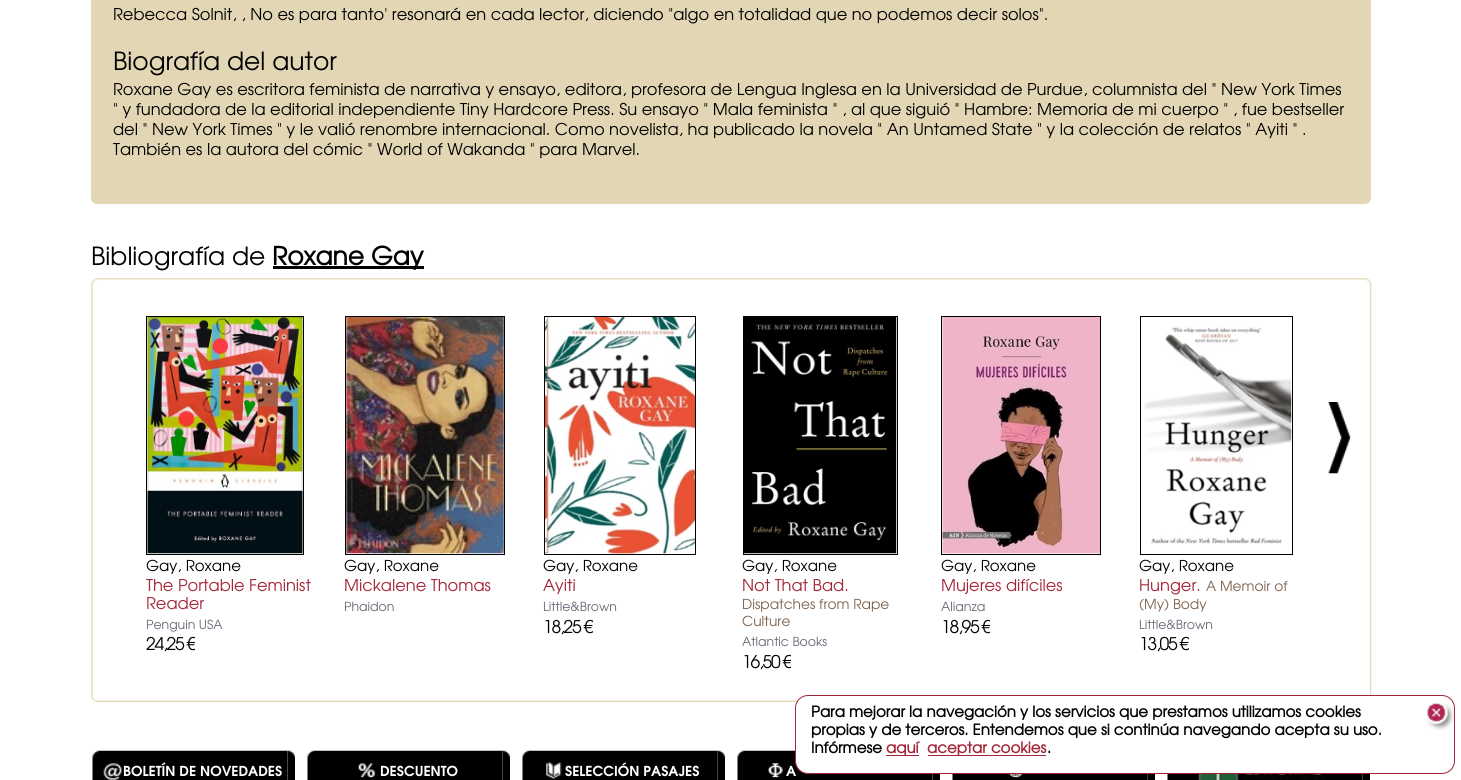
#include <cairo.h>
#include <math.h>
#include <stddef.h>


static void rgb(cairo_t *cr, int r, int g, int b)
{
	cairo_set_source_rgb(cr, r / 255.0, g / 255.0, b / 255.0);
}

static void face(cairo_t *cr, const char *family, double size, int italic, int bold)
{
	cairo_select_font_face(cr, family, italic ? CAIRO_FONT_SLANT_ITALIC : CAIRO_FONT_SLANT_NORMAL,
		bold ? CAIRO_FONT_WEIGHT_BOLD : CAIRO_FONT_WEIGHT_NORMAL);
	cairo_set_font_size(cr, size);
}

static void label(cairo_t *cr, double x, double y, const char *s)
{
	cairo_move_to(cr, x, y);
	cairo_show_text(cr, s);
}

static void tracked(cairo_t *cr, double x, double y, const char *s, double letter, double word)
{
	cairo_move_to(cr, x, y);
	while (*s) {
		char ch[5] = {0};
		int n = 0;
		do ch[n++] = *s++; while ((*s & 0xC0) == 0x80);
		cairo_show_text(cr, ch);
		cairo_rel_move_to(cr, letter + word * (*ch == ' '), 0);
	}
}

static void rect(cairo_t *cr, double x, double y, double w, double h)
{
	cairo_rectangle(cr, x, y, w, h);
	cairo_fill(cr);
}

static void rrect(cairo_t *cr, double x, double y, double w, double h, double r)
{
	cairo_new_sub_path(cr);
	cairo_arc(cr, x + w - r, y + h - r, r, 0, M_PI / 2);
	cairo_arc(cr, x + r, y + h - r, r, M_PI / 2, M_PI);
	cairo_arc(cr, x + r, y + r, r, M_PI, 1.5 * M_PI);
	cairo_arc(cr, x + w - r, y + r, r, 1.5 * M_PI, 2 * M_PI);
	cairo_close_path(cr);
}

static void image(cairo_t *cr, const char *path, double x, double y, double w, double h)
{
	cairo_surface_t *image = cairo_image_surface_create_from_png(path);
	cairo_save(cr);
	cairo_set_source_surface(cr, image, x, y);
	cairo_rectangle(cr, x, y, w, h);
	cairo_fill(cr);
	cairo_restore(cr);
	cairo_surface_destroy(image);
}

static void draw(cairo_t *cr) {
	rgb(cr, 255, 255, 255);
	cairo_paint(cr);
	rgb(cr, 226, 214, 181);
	rrect(cr, 91, -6, 1280, 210, 6);
	cairo_fill(cr);
	face(cr, "TeX Gyre Adventor", 16.25, 0, 0);
	rgb(cr, 0, 0, 0);
	label(cr, 113, 20, "Rebecca Solnit, , No es para tanto' resonará en cada lector, diciendo \"algo en totalidad que no podemos decir solos\".");
	face(cr, "TeX Gyre Adventor", 25, 0, 0);
	label(cr, 113, 70, "Biografía del autor");
	face(cr, "TeX Gyre Adventor", 16.25, 0, 0);
	label(cr, 113, 95, "Roxane Gay es escritora feminista de narrativa y ensayo, editora, profesora de Lengua Inglesa en la Universidad de Purdue, columnista del \" New York Times");
	label(cr, 113, 115, "\" y fundadora de la editorial independiente Tiny Hardcore Press. Su ensayo \" Mala feminista \" , al que siguió \" Hambre: Memoria de mi cuerpo \" , fue bestseller");
	label(cr, 113, 135, "del \" New York Times \" y le valió renombre internacional. Como novelista, ha publicado la novela \" An Untamed State \" y la colección de relatos \" Ayiti \" .");
	label(cr, 113, 155, "También es la autora del cómic \" World of Wakanda \" para Marvel.");
	image(cr, "image0.png", 91, 278, 1281, 424);
	face(cr, "TeX Gyre Adventor", 25, 0, 0);
	label(cr, 91, 265, "Bibliografía de");
	rect(cr, 273, 266, 151, 3);
	face(cr, "TeX Gyre Adventor", 25, 0, 1);
	label(cr, 272, 265, "Roxane Gay");
	image(cr, "image1.png", 1328, 402, 23, 72);
	cairo_rectangle(cr, 146.5, 316.5, 157, 238);
	cairo_set_line_width(cr, 1);
	cairo_stroke(cr);
	image(cr, "image2.png", 147, 317, 156, 237);
	face(cr, "TeX Gyre Adventor", 15, 0, 0);
	label(cr, 146, 571, "Gay, Roxane");
	face(cr, "TeX Gyre Adventor", 16.25, 0, 0);
	rgb(cr, 163, 38, 56);
	label(cr, 146, 591, "The Portable Feminist");
	label(cr, 146, 609, "Reader");
	face(cr, "TeX Gyre Adventor", 12.5, 0, 0);
	rgb(cr, 102, 106, 119);
	label(cr, 146, 629, "Penguin USA");
	cairo_save(cr);
	cairo_rectangle(cr, 146, 634, 49, 22);
	cairo_clip(cr);
	face(cr, "TeX Gyre Adventor", 17.5, 0, 0);
	rgb(cr, 0, 0, 0);
	tracked(cr, 146, 650, "24,25 €", -1.25, 0);
	cairo_restore(cr);
	cairo_rectangle(cr, 345.5, 316.5, 159, 238);
	rgb(cr, 0, 0, 0);
	cairo_stroke(cr);
	image(cr, "image3.png", 346, 317, 158, 237);
	face(cr, "TeX Gyre Adventor", 15, 0, 0);
	label(cr, 344, 571, "Gay, Roxane");
	face(cr, "TeX Gyre Adventor", 16.25, 0, 0);
	rgb(cr, 163, 38, 56);
	label(cr, 344, 591, "Mickalene Thomas");
	face(cr, "TeX Gyre Adventor", 12.5, 0, 0);
	rgb(cr, 102, 106, 119);
	label(cr, 344, 611, "Phaidon");
	cairo_rectangle(cr, 544.5, 316.5, 151, 238);
	rgb(cr, 0, 0, 0);
	cairo_stroke(cr);
	image(cr, "image4.png", 545, 317, 150, 237);
	face(cr, "TeX Gyre Adventor", 15, 0, 0);
	label(cr, 543, 571, "Gay, Roxane");
	face(cr, "TeX Gyre Adventor", 16.25, 0, 0);
	rgb(cr, 163, 38, 56);
	label(cr, 543, 591, "Ayiti");
	face(cr, "TeX Gyre Adventor", 12.5, 0, 0);
	rgb(cr, 102, 106, 119);
	label(cr, 543, 611, "Little&Brown");
	cairo_save(cr);
	cairo_rectangle(cr, 544, 616, 49, 23);
	cairo_clip(cr);
	face(cr, "TeX Gyre Adventor", 17.5, 0, 0);
	rgb(cr, 0, 0, 0);
	tracked(cr, 543, 633, "18,25 €", -1.25, 0);
	cairo_restore(cr);
	cairo_rectangle(cr, 743.5, 316.5, 154, 238);
	rgb(cr, 0, 0, 0);
	cairo_stroke(cr);
	image(cr, "image5.png", 744, 317, 153, 237);
	face(cr, "TeX Gyre Adventor", 15, 0, 0);
	label(cr, 742, 571, "Gay, Roxane");
	face(cr, "TeX Gyre Adventor", 16.25, 0, 0);
	rgb(cr, 163, 38, 56);
	label(cr, 742, 591, "Not That Bad.");
	face(cr, "TeX Gyre Adventor", 13.75, 0, 0);
	rgb(cr, 126, 99, 79);
	label(cr, 742, 609, "Dispatches from Rape");
	label(cr, 742, 626, "Culture");
	face(cr, "TeX Gyre Adventor", 12.5, 0, 0);
	rgb(cr, 102, 106, 119);
	label(cr, 742, 646, "Atlantic Books");
	cairo_save(cr);
	cairo_rectangle(cr, 743, 651, 48, 23);
	cairo_clip(cr);
	face(cr, "TeX Gyre Adventor", 17.5, 0, 0);
	rgb(cr, 0, 0, 0);
	tracked(cr, 742, 668, "16,50 €", -1.25, 0);
	cairo_restore(cr);
	cairo_rectangle(cr, 941.5, 316.5, 159, 238);
	rgb(cr, 0, 0, 0);
	cairo_stroke(cr);
	image(cr, "image6.png", 942, 317, 158, 237);
	face(cr, "TeX Gyre Adventor", 15, 0, 0);
	label(cr, 941, 571, "Gay, Roxane");
	face(cr, "TeX Gyre Adventor", 16.25, 0, 0);
	rgb(cr, 163, 38, 56);
	label(cr, 941, 591, "Mujeres difíciles");
	face(cr, "TeX Gyre Adventor", 12.5, 0, 0);
	rgb(cr, 102, 106, 119);
	label(cr, 941, 611, "Alianza");
	cairo_save(cr);
	cairo_rectangle(cr, 941, 616, 49, 23);
	cairo_clip(cr);
	face(cr, "TeX Gyre Adventor", 17.5, 0, 0);
	rgb(cr, 0, 0, 0);
	tracked(cr, 941, 633, "18,95 €", -1.25, 0);
	cairo_restore(cr);
	cairo_rectangle(cr, 1140.5, 316.5, 152, 238);
	rgb(cr, 0, 0, 0);
	cairo_stroke(cr);
	image(cr, "image7.png", 1144, 327, 148, 217);
	face(cr, "TeX Gyre Adventor", 15, 0, 0);
	label(cr, 1139, 571, "Gay, Roxane");
	face(cr, "TeX Gyre Adventor", 16.25, 0, 0);
	rgb(cr, 163, 38, 56);
	label(cr, 1139, 591, "Hunger.");
	face(cr, "TeX Gyre Adventor", 13.75, 0, 0);
	rgb(cr, 126, 99, 79);
	label(cr, 1206, 591, "A Memoir of");
	label(cr, 1139, 609, "(My) Body");
	face(cr, "TeX Gyre Adventor", 12.5, 0, 0);
	rgb(cr, 102, 106, 119);
	label(cr, 1139, 629, "Little&Brown");
	cairo_save(cr);
	cairo_rectangle(cr, 1140, 634, 49, 22);
	cairo_clip(cr);
	face(cr, "TeX Gyre Adventor", 17.5, 0, 0);
	rgb(cr, 0, 0, 0);
	tracked(cr, 1139, 650, "13,05 €", -1.25, 0);
	cairo_restore(cr);
	image(cr, "image9.png", 737, 750, 196, 30);
	rgb(cr, 255, 255, 255);
	rrect(cr, 795.5, 695.5, 659, 78, 12.5);
	cairo_fill_preserve(cr);
	rgb(cr, 163, 38, 56);
	cairo_stroke(cr);
	face(cr, "TeX Gyre Adventor", 15, 0, 1);
	rgb(cr, 0, 0, 0);
	label(cr, 811, 717, "Para mejorar la navegación y los servicios que prestamos utilizamos cookies");
	label(cr, 811, 735, "propias y de terceros. Entendemos que si continúa navegando acepta su uso.");
	label(cr, 811, 753, "Infórmese");
	rgb(cr, 163, 38, 56);
	rect(cr, 886, 755, 33, 1);
	label(cr, 886, 753, "aquí");
	rect(cr, 928, 755, 118, 1);
	label(cr, 927, 753, "aceptar cookies");
	rgb(cr, 0, 0, 0);
	label(cr, 1047, 753, ".");
	image(cr, "image8.png", 1426, 702, 28, 28);
	image(cr, "image9.png", 92, 750, 196, 30);
	image(cr, "image10.png", 287, 750, 8, 30);
	image(cr, "image11.png", 103, 763, 19, 17);
	face(cr, "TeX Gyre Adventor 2", 13.75, 0, 1);
	rgb(cr, 255, 255, 255);
	label(cr, 123, 776, "BOLETÍN DE NOVEDADES");
	image(cr, "image9.png", 307, 750, 196, 30);
	image(cr, "image12.png", 502, 750, 8, 30);
	image(cr, "image13.png", 358, 763, 18, 15);
	label(cr, 380, 776, "DESCUENTO");
	image(cr, "image9.png", 522, 750, 196, 30);
	image(cr, "image14.png", 717, 750, 8, 30);
	image(cr, "image15.png", 546, 762, 16, 18);
	label(cr, 565, 776, "SELECCIÓN PASAJES");
	image(cr, "image16.png", 932, 774, 8, 6);
	image(cr, "image17.png", 767, 763, 16, 15);
	label(cr, 786, 776, "A");
	image(cr, "image18.png", 952, 774, 196, 6);
	image(cr, "image19.png", 1147, 774, 8, 6);
	image(cr, "image20.png", 1008, 774, 15, 4);
	image(cr, "image18.png", 1167, 774, 196, 6);
	image(cr, "image19.png", 1362, 774, 8, 6);
	image(cr, "image21.png", 1198, 774, 127, 6);
}

int main(void) {
	cairo_surface_t *surface = cairo_image_surface_create(CAIRO_FORMAT_RGB24, 1461, 780);
	cairo_t *cr = cairo_create(surface);
	cairo_font_options_t *options = cairo_font_options_create();
	cairo_font_options_set_hint_metrics(options, CAIRO_HINT_METRICS_OFF);
	cairo_font_options_set_hint_style(options, CAIRO_HINT_STYLE_NONE);
	cairo_set_font_options(cr, options);
	cairo_set_miter_limit(cr, 4);
	draw(cr);
	cairo_surface_write_to_png(surface, "render.png");
	cairo_font_options_destroy(options);
	cairo_destroy(cr);
	cairo_surface_destroy(surface);
	return 0;
}
